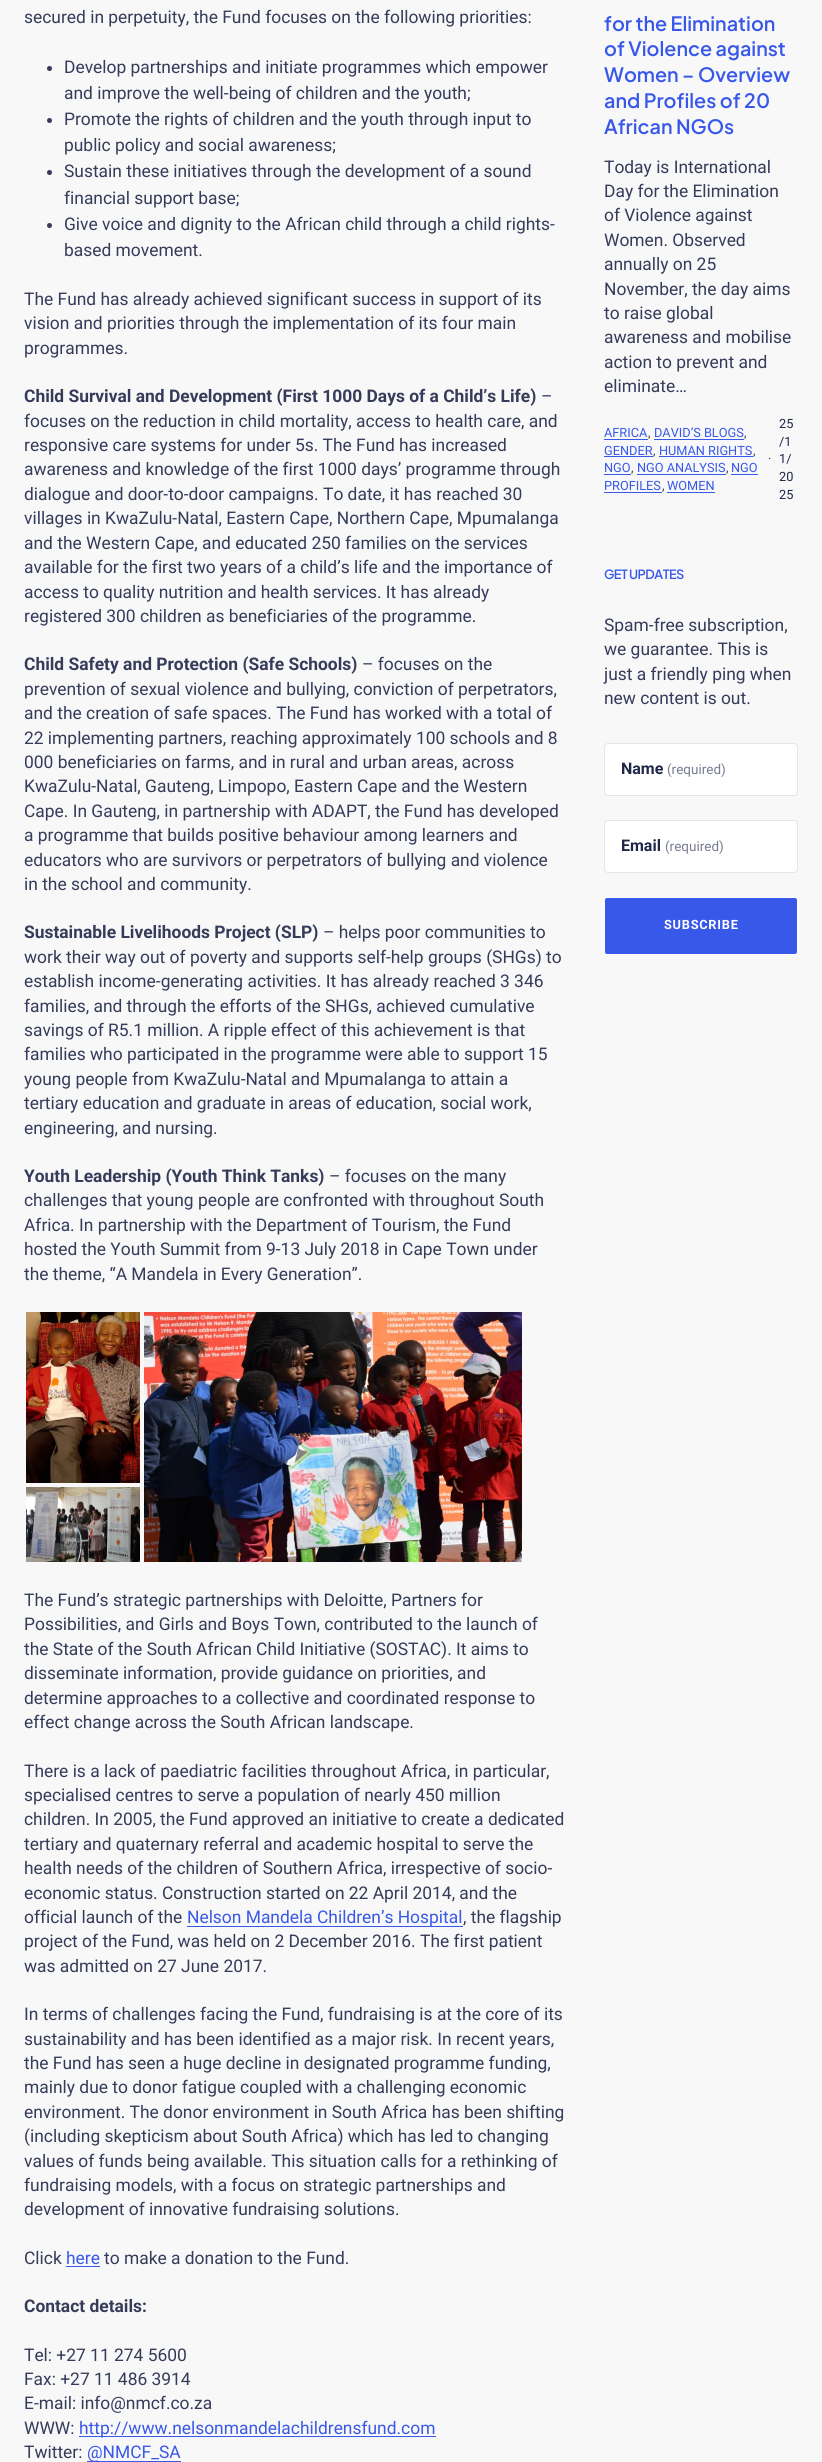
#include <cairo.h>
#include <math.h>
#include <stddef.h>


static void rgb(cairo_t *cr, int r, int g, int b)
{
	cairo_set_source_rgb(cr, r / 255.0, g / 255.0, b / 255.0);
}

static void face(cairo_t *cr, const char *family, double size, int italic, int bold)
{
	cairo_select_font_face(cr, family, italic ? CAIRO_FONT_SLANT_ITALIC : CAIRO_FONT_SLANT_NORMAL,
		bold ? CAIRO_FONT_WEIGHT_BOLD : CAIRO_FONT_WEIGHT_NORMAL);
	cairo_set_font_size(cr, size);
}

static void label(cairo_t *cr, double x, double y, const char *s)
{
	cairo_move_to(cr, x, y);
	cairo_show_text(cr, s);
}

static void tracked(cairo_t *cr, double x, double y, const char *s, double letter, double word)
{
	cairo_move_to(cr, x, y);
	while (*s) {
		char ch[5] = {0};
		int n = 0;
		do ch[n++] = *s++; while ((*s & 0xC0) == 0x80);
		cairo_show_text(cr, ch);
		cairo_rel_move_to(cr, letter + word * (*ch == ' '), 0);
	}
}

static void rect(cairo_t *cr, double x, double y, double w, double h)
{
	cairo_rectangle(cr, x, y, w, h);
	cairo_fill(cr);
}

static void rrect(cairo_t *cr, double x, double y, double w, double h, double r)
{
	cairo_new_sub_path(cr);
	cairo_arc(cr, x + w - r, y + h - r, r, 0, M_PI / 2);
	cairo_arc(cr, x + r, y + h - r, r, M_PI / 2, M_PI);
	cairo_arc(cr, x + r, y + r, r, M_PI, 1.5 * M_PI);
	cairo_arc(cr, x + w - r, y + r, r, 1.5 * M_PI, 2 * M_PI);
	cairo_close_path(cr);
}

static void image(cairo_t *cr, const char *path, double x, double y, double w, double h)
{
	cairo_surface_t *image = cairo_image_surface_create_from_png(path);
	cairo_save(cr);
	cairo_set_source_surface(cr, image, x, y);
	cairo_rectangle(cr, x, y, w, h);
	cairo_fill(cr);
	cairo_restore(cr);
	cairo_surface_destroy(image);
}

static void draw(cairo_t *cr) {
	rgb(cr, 248, 248, 249);
	cairo_paint(cr);
	face(cr, "Roboto", 17.4, 0, 0);
	rgb(cr, 53, 59, 89);
	label(cr, 24, 23, "secured in perpetuity, the Fund focuses on the following priorities:");
	cairo_new_path(cr);
	cairo_arc(cr, 49.5, 68.5, 2.5, 0, 2 * M_PI);
	cairo_fill(cr);
	label(cr, 64, 73, "Develop partnerships and initiate programmes which empower");
	label(cr, 64, 99, "and improve the well-being of children and the youth;");
	cairo_new_path(cr);
	cairo_arc(cr, 49.5, 120.5, 2.5, 0, 2 * M_PI);
	cairo_fill(cr);
	label(cr, 64, 125, "Promote the rights of children and the youth through input to");
	label(cr, 64, 151, "public policy and social awareness;");
	cairo_new_path(cr);
	cairo_arc(cr, 49.5, 172.5, 2.5, 0, 2 * M_PI);
	cairo_fill(cr);
	label(cr, 64, 177, "Sustain these initiatives through the development of a sound");
	label(cr, 64, 204, "financial support base;");
	cairo_new_path(cr);
	cairo_arc(cr, 49.5, 225.5, 2.5, 0, 2 * M_PI);
	cairo_fill(cr);
	label(cr, 64, 230, "Give voice and dignity to the African child through a child rights-");
	label(cr, 64, 256, "based movement.");
	label(cr, 24, 305, "The Fund has already achieved significant success in support of its");
	label(cr, 24, 329, "vision and priorities through the implementation of its four main");
	label(cr, 24, 354, "programmes.");
	face(cr, "Roboto", 17.4, 0, 1);
	label(cr, 24, 402, "Child Survival and Development (First 1000 Days of a Child’s Life)");
	face(cr, "Roboto", 17.4, 0, 0);
	label(cr, 541, 402, "–");
	label(cr, 24, 427, "focuses on the reduction in child mortality, access to health care, and");
	label(cr, 24, 451, "responsive care systems for under 5s. The Fund has increased");
	label(cr, 24, 475, "awareness and knowledge of the first 1000 days’ programme through");
	label(cr, 24, 500, "dialogue and door-to-door campaigns. To date, it has reached 30");
	label(cr, 24, 524, "villages in KwaZulu-Natal, Eastern Cape, Northern Cape, Mpumalanga");
	label(cr, 24, 549, "and the Western Cape, and educated 250 families on the services");
	label(cr, 24, 573, "available for the first two years of a child’s life and the importance of");
	label(cr, 24, 598, "access to quality nutrition and health services. It has already");
	label(cr, 24, 622, "registered 300 children as beneficiaries of the programme.");
	face(cr, "Roboto", 17.4, 0, 1);
	label(cr, 24, 670, "Child Safety and Protection (Safe Schools)");
	face(cr, "Roboto", 17.4, 0, 0);
	label(cr, 362, 670, "– focuses on the");
	label(cr, 24, 695, "prevention of sexual violence and bullying, conviction of perpetrators,");
	label(cr, 24, 719, "and the creation of safe spaces. The Fund has worked with a total of");
	label(cr, 24, 744, "22 implementing partners, reaching approximately 100 schools and 8");
	label(cr, 24, 768, "000 beneficiaries on farms, and in rural and urban areas, across");
	label(cr, 24, 792, "KwaZulu-Natal, Gauteng, Limpopo, Eastern Cape and the Western");
	label(cr, 24, 817, "Cape. In Gauteng, in partnership with ADAPT, the Fund has developed");
	label(cr, 24, 841, "a programme that builds positive behaviour among learners and");
	label(cr, 24, 866, "educators who are survivors or perpetrators of bullying and violence");
	label(cr, 24, 890, "in the school and community.");
	face(cr, "Roboto", 17.4, 0, 1);
	label(cr, 24, 938, "Sustainable Livelihoods Project (SLP)");
	face(cr, "Roboto", 17.4, 0, 0);
	label(cr, 323, 938, "– helps poor communities to");
	label(cr, 24, 963, "work their way out of poverty and supports self-help groups (SHGs) to");
	label(cr, 24, 987, "establish income-generating activities. It has already reached 3 346");
	label(cr, 24, 1012, "families, and through the efforts of the SHGs, achieved cumulative");
	label(cr, 24, 1036, "savings of R5.1 million. A ripple effect of this achievement is that");
	label(cr, 24, 1060, "families who participated in the programme were able to support 15");
	label(cr, 24, 1085, "young people from KwaZulu-Natal and Mpumalanga to attain a");
	label(cr, 24, 1109, "tertiary education and graduate in areas of education, social work,");
	label(cr, 24, 1134, "engineering, and nursing.");
	face(cr, "Roboto", 17.4, 0, 1);
	label(cr, 24, 1182, "Youth Leadership (Youth Think Tanks)");
	face(cr, "Roboto", 17.4, 0, 0);
	label(cr, 329, 1182, "– focuses on the many");
	label(cr, 24, 1206, "challenges that young people are confronted with throughout South");
	label(cr, 24, 1231, "Africa. In partnership with the Department of Tourism, the Fund");
	label(cr, 24, 1255, "hosted the Youth Summit from 9-13 July 2018 in Cape Town under");
	label(cr, 24, 1280, "the theme, “A Mandela in Every Generation”.");
	image(cr, "image0.png", 26, 1312, 114, 171);
	image(cr, "image1.png", 26, 1487, 114, 75);
	image(cr, "image2.png", 144, 1312, 378, 250);
	label(cr, 24, 1606, "The Fund’s strategic partnerships with Deloitte, Partners for");
	label(cr, 24, 1630, "Possibilities, and Girls and Boys Town, contributed to the launch of");
	label(cr, 24, 1655, "the State of the South African Child Initiative (SOSTAC). It aims to");
	label(cr, 24, 1679, "disseminate information, provide guidance on priorities, and");
	label(cr, 24, 1704, "determine approaches to a collective and coordinated response to");
	label(cr, 24, 1728, "effect change across the South African landscape.");
	label(cr, 24, 1777, "There is a lack of paediatric facilities throughout Africa, in particular,");
	label(cr, 24, 1801, "specialised centres to serve a population of nearly 450 million");
	label(cr, 24, 1825, "children. In 2005, the Fund approved an initiative to create a dedicated");
	label(cr, 24, 1850, "tertiary and quaternary referral and academic hospital to serve the");
	label(cr, 24, 1874, "health needs of the children of Southern Africa, irrespective of socio-");
	label(cr, 24, 1899, "economic status. Construction started on 22 April 2014, and the");
	label(cr, 24, 1923, "official launch of the");
	rgb(cr, 56, 88, 233);
	rect(cr, 187, 1926, 276, 1);
	label(cr, 187, 1923, "Nelson Mandela Children’s Hospital");
	rgb(cr, 53, 59, 89);
	label(cr, 463, 1923, ", the flagship");
	label(cr, 24, 1947, "project of the Fund, was held on 2 December 2016. The first patient");
	label(cr, 24, 1972, "was admitted on 27 June 2017.");
	label(cr, 24, 2020, "In terms of challenges facing the Fund, fundraising is at the core of its");
	label(cr, 24, 2045, "sustainability and has been identified as a major risk. In recent years,");
	label(cr, 24, 2069, "the Fund has seen a huge decline in designated programme funding,");
	label(cr, 24, 2093, "mainly due to donor fatigue coupled with a challenging economic");
	label(cr, 24, 2118, "environment. The donor environment in South Africa has been shifting");
	label(cr, 24, 2142, "(including skepticism about South Africa) which has led to changing");
	label(cr, 24, 2167, "values of funds being available. This situation calls for a rethinking of");
	label(cr, 24, 2191, "fundraising models, with a focus on strategic partnerships and");
	label(cr, 24, 2215, "development of innovative fundraising solutions.");
	label(cr, 24, 2264, "Click");
	rgb(cr, 56, 88, 233);
	label(cr, 66, 2264, "here");
	rect(cr, 66, 2266, 34, 1);
	rgb(cr, 53, 59, 89);
	label(cr, 104, 2264, "to make a donation to the Fund.");
	face(cr, "Roboto", 17.4, 0, 1);
	label(cr, 24, 2312, "Contact details:");
	face(cr, "Roboto", 17.4, 0, 0);
	label(cr, 24, 2361, "Tel: +27 11 274 5600");
	label(cr, 24, 2385, "Fax: +27 11 486 3914");
	label(cr, 24, 2409, "E-mail: info@nmcf.co.za");
	label(cr, 24, 2434, "WWW:");
	rgb(cr, 56, 88, 233);
	rect(cr, 79, 2436, 357, 1);
	label(cr, 79, 2434, "http://www.nelsonmandelachildrensfund.com");
	rgb(cr, 53, 59, 89);
	label(cr, 24, 2458, "Twitter:");
	rgb(cr, 56, 88, 233);
	rect(cr, 87, 2461, 94, 1);
	label(cr, 87, 2458, "@NMCF_SA");
	face(cr, "Plus Jakarta Sans SemiBold", 19.75, 0, 0);
	label(cr, 604, 31, "for the Elimination");
	label(cr, 604, 56, "of Violence against");
	label(cr, 604, 82, "Women – Overview");
	label(cr, 604, 108, "and Profiles of 20");
	label(cr, 604, 134, "African NGOs");
	face(cr, "Roboto", 17.4, 0, 0);
	rgb(cr, 53, 59, 89);
	label(cr, 604, 173, "Today is International");
	label(cr, 604, 197, "Day for the Elimination");
	label(cr, 604, 221, "of Violence against");
	label(cr, 604, 246, "Women. Observed");
	label(cr, 604, 270, "annually on 25");
	label(cr, 604, 295, "November, the day aims");
	label(cr, 604, 319, "to raise global");
	label(cr, 604, 343, "awareness and mobilise");
	label(cr, 604, 368, "action to prevent and");
	label(cr, 604, 392, "eliminate…");
	face(cr, "Roboto", 12.75, 0, 0);
	rgb(cr, 56, 88, 233);
	label(cr, 604, 437, "AFRICA");
	rect(cr, 604, 439, 44, 1);
	rgb(cr, 53, 59, 89);
	label(cr, 648, 437, ",");
	rgb(cr, 56, 88, 233);
	label(cr, 654, 437, "DAVID’S BLOGS");
	rect(cr, 654, 439, 90, 1);
	rgb(cr, 53, 59, 89);
	label(cr, 744, 437, ",");
	rgb(cr, 56, 88, 233);
	label(cr, 604, 455, "GENDER");
	rect(cr, 604, 456, 49, 1);
	rgb(cr, 53, 59, 89);
	label(cr, 653, 455, ",");
	rgb(cr, 56, 88, 233);
	label(cr, 659, 455, "HUMAN RIGHTS");
	rect(cr, 659, 456, 94, 1);
	rgb(cr, 53, 59, 89);
	label(cr, 753, 455, ",");
	rgb(cr, 56, 88, 233);
	label(cr, 604, 472, "NGO");
	rect(cr, 604, 474, 27, 1);
	rgb(cr, 53, 59, 89);
	label(cr, 631, 472, ",");
	rgb(cr, 56, 88, 233);
	label(cr, 637, 472, "NGO ANALYSIS");
	rect(cr, 637, 474, 89, 1);
	rgb(cr, 53, 59, 89);
	label(cr, 726, 472, ",");
	rgb(cr, 56, 88, 233);
	label(cr, 731, 472, "NGO");
	rect(cr, 731, 474, 27, 1);
	label(cr, 604, 490, "PROFILES");
	rect(cr, 604, 492, 58, 1);
	rgb(cr, 53, 59, 89);
	label(cr, 662, 490, ",");
	rgb(cr, 56, 88, 233);
	label(cr, 667, 490, "WOMEN");
	rect(cr, 667, 492, 48, 1);
	rgb(cr, 53, 59, 89);
	label(cr, 768, 463, "·");
	rgb(cr, 31, 38, 71);
	label(cr, 779, 428, "25");
	label(cr, 779, 446, "/1");
	label(cr, 779, 463, "1/");
	label(cr, 779, 481, "20");
	label(cr, 779, 499, "25");
	face(cr, "Plus Jakarta Sans SemiBold", 12.75, 0, 0);
	rgb(cr, 56, 88, 233);
	tracked(cr, 604, 579, "GET UPDATES", -0.5, 0);
	face(cr, "Roboto", 17.4, 0, 0);
	rgb(cr, 53, 59, 89);
	label(cr, 604, 631, "Spam-free subscription,");
	label(cr, 604, 655, "we guarantee. This is");
	label(cr, 604, 680, "just a friendly ping when");
	label(cr, 604, 704, "new content is out.");
	rgb(cr, 255, 255, 255);
	rrect(cr, 604.5, 743.5, 193, 52, 3.5);
	cairo_fill_preserve(cr);
	rgb(cr, 228, 229, 231);
	cairo_set_line_width(cr, 1);
	cairo_stroke(cr);
	face(cr, "Roboto", 16, 0, 1);
	rgb(cr, 31, 38, 71);
	label(cr, 621, 774, "Name");
	face(cr, "Roboto", 13.5, 0, 0);
	rgb(cr, 121, 125, 145);
	label(cr, 667, 774, "(required)");
	rgb(cr, 255, 255, 255);
	rrect(cr, 604.5, 820.5, 193, 52, 3.5);
	cairo_fill_preserve(cr);
	rgb(cr, 228, 229, 231);
	cairo_stroke(cr);
	face(cr, "Roboto", 16, 0, 1);
	rgb(cr, 31, 38, 71);
	label(cr, 621, 851, "Email");
	face(cr, "Roboto", 13.5, 0, 0);
	rgb(cr, 121, 125, 145);
	label(cr, 665, 851, "(required)");
	rgb(cr, 56, 88, 233);
	rrect(cr, 604.5, 897.5, 193, 57, 2.5);
	cairo_fill_preserve(cr);
	rgb(cr, 255, 255, 255);
	cairo_stroke(cr);
	face(cr, "Roboto", 12.75, 0, 1);
	tracked(cr, 664, 929, "SUBSCRIBE", 0.75, 0);
}

int main(void) {
	cairo_surface_t *surface = cairo_image_surface_create(CAIRO_FORMAT_RGB24, 822, 2462);
	cairo_t *cr = cairo_create(surface);
	cairo_font_options_t *options = cairo_font_options_create();
	cairo_font_options_set_hint_metrics(options, CAIRO_HINT_METRICS_OFF);
	cairo_font_options_set_hint_style(options, CAIRO_HINT_STYLE_NONE);
	cairo_set_font_options(cr, options);
	cairo_set_miter_limit(cr, 4);
	draw(cr);
	cairo_surface_write_to_png(surface, "render.png");
	cairo_font_options_destroy(options);
	cairo_destroy(cr);
	cairo_surface_destroy(surface);
	return 0;
}
